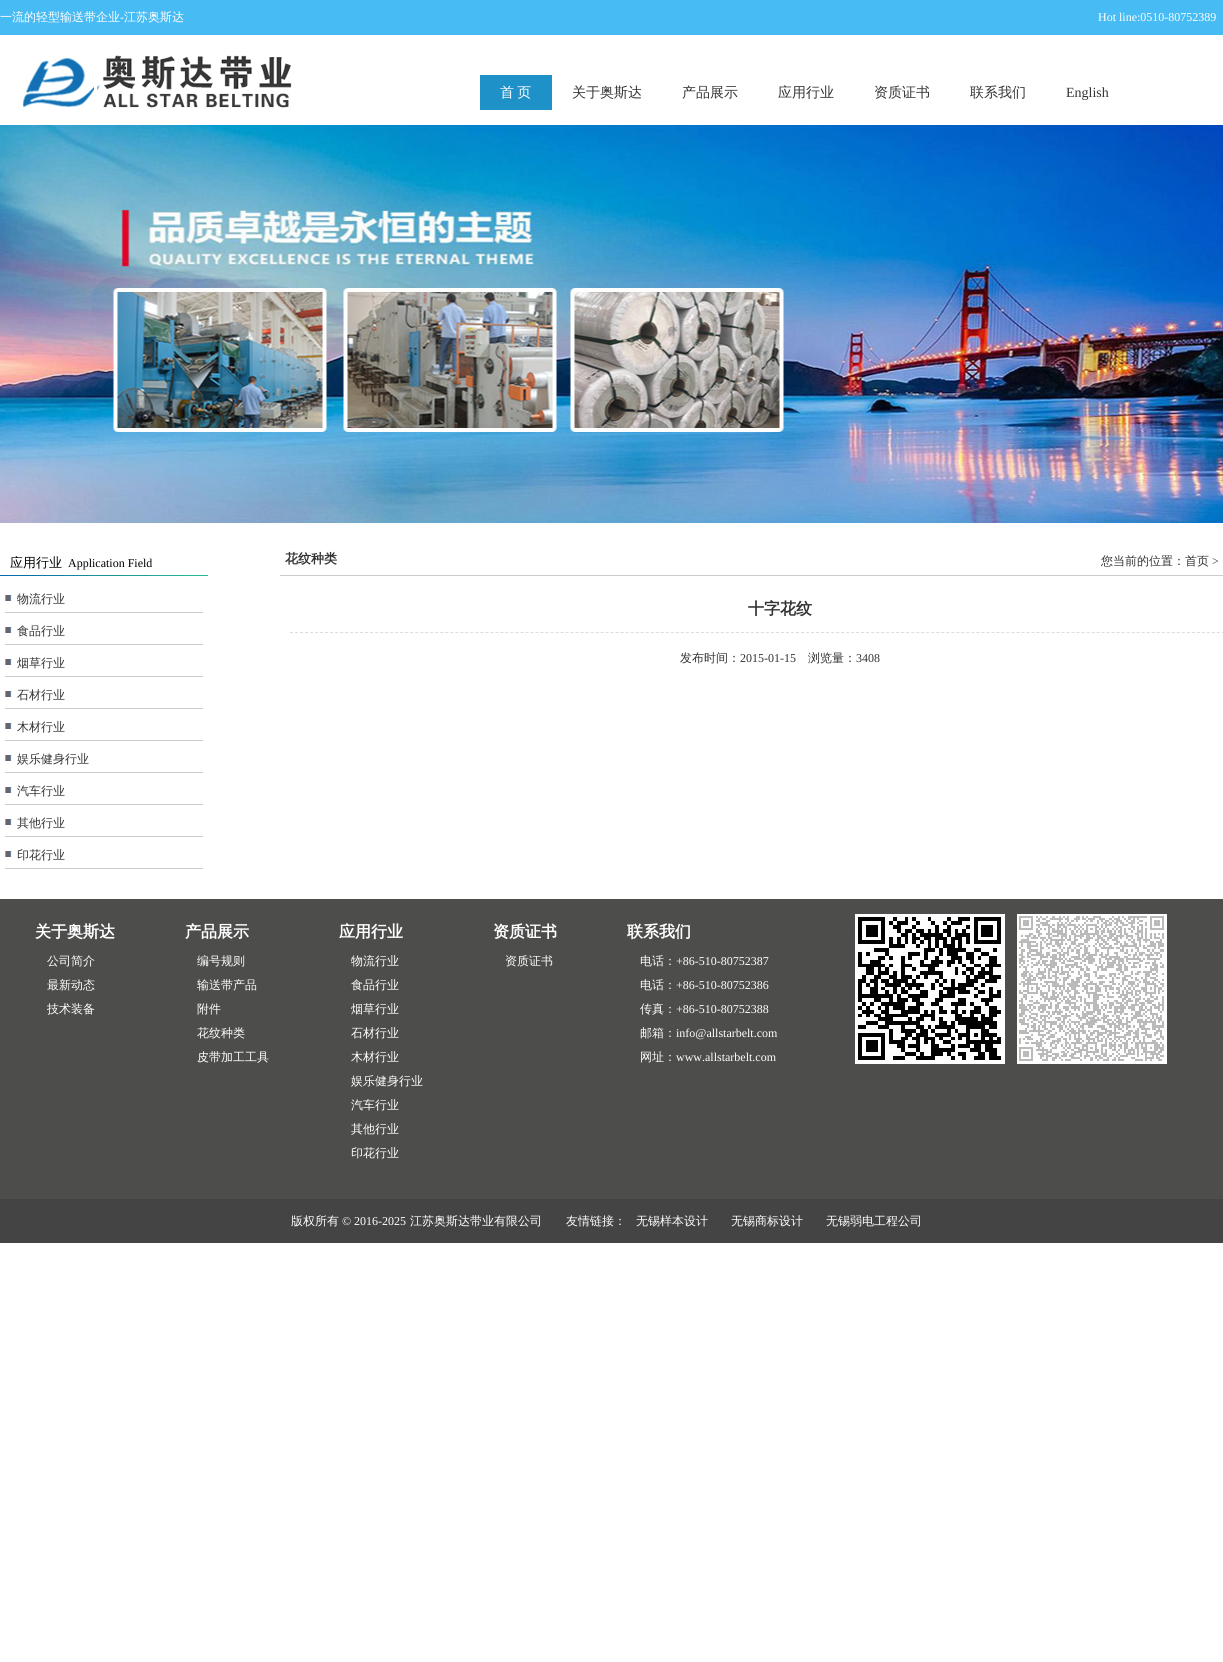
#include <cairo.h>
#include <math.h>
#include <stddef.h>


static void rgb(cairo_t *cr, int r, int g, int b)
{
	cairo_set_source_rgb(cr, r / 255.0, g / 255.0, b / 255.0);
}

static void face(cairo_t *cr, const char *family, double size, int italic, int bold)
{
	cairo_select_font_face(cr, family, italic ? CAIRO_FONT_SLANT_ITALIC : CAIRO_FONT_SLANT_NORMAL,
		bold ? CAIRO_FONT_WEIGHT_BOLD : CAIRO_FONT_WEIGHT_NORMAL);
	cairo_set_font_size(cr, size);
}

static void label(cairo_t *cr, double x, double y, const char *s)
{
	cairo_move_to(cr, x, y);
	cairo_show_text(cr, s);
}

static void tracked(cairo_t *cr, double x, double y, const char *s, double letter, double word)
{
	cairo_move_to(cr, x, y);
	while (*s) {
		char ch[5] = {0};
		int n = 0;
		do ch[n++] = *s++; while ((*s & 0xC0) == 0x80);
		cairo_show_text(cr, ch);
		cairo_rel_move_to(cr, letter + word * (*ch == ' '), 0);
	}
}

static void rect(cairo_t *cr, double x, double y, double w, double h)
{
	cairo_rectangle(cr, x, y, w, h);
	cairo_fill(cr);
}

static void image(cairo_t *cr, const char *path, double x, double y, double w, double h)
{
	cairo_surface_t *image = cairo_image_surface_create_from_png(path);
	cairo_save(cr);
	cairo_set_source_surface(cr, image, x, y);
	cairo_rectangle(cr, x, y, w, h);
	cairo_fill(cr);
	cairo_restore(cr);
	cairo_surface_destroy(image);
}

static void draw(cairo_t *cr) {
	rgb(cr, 255, 255, 255);
	cairo_paint(cr);
	rgb(cr, 70, 187, 244);
	rect(cr, 0, 0, 1223, 35);
	face(cr, "WenQuanYi Zen Hei Medium", 12, 0, 0);
	rgb(cr, 255, 255, 255);
	label(cr, 0, 21, "一流的轻型输送带企业");
	face(cr, "Liberation Serif", 12, 0, 0);
	label(cr, 120, 21, "-");
	face(cr, "WenQuanYi Zen Hei Medium", 12, 0, 0);
	label(cr, 124, 21, "江苏奥斯达");
	face(cr, "Liberation Serif", 12, 0, 0);
	label(cr, 1098, 21, "Hot line:0510-80752389");
	image(cr, "image0.png", 23, 55, 269, 53);
	rgb(cr, 31, 145, 201);
	rect(cr, 480, 75, 72, 35);
	face(cr, "WenQuanYi Zen Hei Medium", 14, 0, 0);
	rgb(cr, 255, 255, 255);
	tracked(cr, 500, 97, "首 页", 0, -1);
	rgb(cr, 51, 51, 51);
	label(cr, 572, 97, "关于奥斯达");
	label(cr, 682, 97, "产品展示");
	label(cr, 778, 97, "应用行业");
	label(cr, 874, 97, "资质证书");
	label(cr, 970, 97, "联系我们");
	face(cr, "Liberation Serif", 14, 0, 0);
	label(cr, 1066, 97, "English");
	image(cr, "image1.png", 0, 125, 1223, 400);
	image(cr, "image2.png", 0, 575, 208, 1);
	face(cr, "WenQuanYi Zen Hei Medium", 13, 0, 0);
	rgb(cr, 0, 0, 0);
	label(cr, 10, 567, "应用行业");
	face(cr, "Liberation Serif", 12, 0, 0);
	label(cr, 68, 567, "Application Field");
	rgb(cr, 204, 204, 204);
	rect(cr, 5, 612, 198, 1);
	image(cr, "image3.png", 5, 595, 7, 6);
	face(cr, "WenQuanYi Zen Hei Medium", 12, 0, 0);
	rgb(cr, 51, 51, 51);
	label(cr, 17, 603, "物流行业");
	rgb(cr, 204, 204, 204);
	rect(cr, 5, 644, 198, 1);
	image(cr, "image3.png", 5, 627, 7, 6);
	rgb(cr, 51, 51, 51);
	label(cr, 17, 635, "食品行业");
	rgb(cr, 204, 204, 204);
	rect(cr, 5, 676, 198, 1);
	image(cr, "image3.png", 5, 659, 7, 6);
	rgb(cr, 51, 51, 51);
	label(cr, 17, 667, "烟草行业");
	rgb(cr, 204, 204, 204);
	rect(cr, 5, 708, 198, 1);
	image(cr, "image3.png", 5, 691, 7, 6);
	rgb(cr, 51, 51, 51);
	label(cr, 17, 699, "石材行业");
	rgb(cr, 204, 204, 204);
	rect(cr, 5, 740, 198, 1);
	image(cr, "image3.png", 5, 723, 7, 6);
	rgb(cr, 51, 51, 51);
	label(cr, 17, 731, "木材行业");
	rgb(cr, 204, 204, 204);
	rect(cr, 5, 772, 198, 1);
	image(cr, "image3.png", 5, 755, 7, 6);
	rgb(cr, 51, 51, 51);
	label(cr, 17, 763, "娱乐健身行业");
	rgb(cr, 204, 204, 204);
	rect(cr, 5, 804, 198, 1);
	image(cr, "image3.png", 5, 787, 7, 6);
	rgb(cr, 51, 51, 51);
	label(cr, 17, 795, "汽车行业");
	rgb(cr, 204, 204, 204);
	rect(cr, 5, 836, 198, 1);
	image(cr, "image3.png", 5, 819, 7, 6);
	rgb(cr, 51, 51, 51);
	label(cr, 17, 827, "其他行业");
	rgb(cr, 204, 204, 204);
	rect(cr, 5, 868, 198, 1);
	image(cr, "image3.png", 5, 851, 7, 6);
	rgb(cr, 51, 51, 51);
	label(cr, 17, 859, "印花行业");
	rgb(cr, 204, 204, 204);
	rect(cr, 280, 575, 943, 1);
	face(cr, "WenQuanYi Zen Hei", 13, 0, 1);
	rgb(cr, 51, 51, 51);
	label(cr, 285, 563, "花纹种类");
	face(cr, "WenQuanYi Zen Hei Medium", 12, 0, 0);
	label(cr, 1101, 565, "您当前的位置：首页");
	face(cr, "Liberation Serif", 12, 0, 0);
	label(cr, 1212, 565, ">");
	cairo_new_path(cr);
	cairo_move_to(cr, 290, 632.5);
	cairo_line_to(cr, 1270, 632.5);
	rgb(cr, 221, 221, 221);
	cairo_set_line_width(cr, 1);
	cairo_set_dash(cr, (double[]){3, 2.01}, 2, 0);
	cairo_stroke(cr);
	face(cr, "WenQuanYi Zen Hei", 16, 0, 1);
	rgb(cr, 51, 51, 51);
	label(cr, 748, 614, "十字花纹");
	face(cr, "WenQuanYi Zen Hei Medium", 12, 0, 0);
	label(cr, 680, 662, "发布时间：");
	face(cr, "Liberation Serif", 12, 0, 0);
	label(cr, 740, 662, "2015-01-15");
	face(cr, "WenQuanYi Zen Hei Medium", 12, 0, 0);
	label(cr, 808, 662, "浏览量：");
	face(cr, "Liberation Serif", 12, 0, 0);
	label(cr, 856, 662, "3408");
	rgb(cr, 77, 77, 76);
	rect(cr, 0, 899, 1223, 300);
	face(cr, "WenQuanYi Zen Hei", 16, 0, 1);
	rgb(cr, 255, 255, 255);
	label(cr, 35, 937, "关于奥斯达");
	face(cr, "WenQuanYi Zen Hei Medium", 12, 0, 0);
	label(cr, 47, 965, "公司简介");
	label(cr, 47, 989, "最新动态");
	label(cr, 47, 1013, "技术装备");
	face(cr, "WenQuanYi Zen Hei", 16, 0, 1);
	label(cr, 185, 937, "产品展示");
	face(cr, "WenQuanYi Zen Hei Medium", 12, 0, 0);
	label(cr, 197, 965, "编号规则");
	label(cr, 197, 989, "输送带产品");
	label(cr, 197, 1013, "附件");
	label(cr, 197, 1037, "花纹种类");
	label(cr, 197, 1061, "皮带加工工具");
	face(cr, "WenQuanYi Zen Hei", 16, 0, 1);
	label(cr, 339, 937, "应用行业");
	face(cr, "WenQuanYi Zen Hei Medium", 12, 0, 0);
	label(cr, 351, 965, "物流行业");
	label(cr, 351, 989, "食品行业");
	label(cr, 351, 1013, "烟草行业");
	label(cr, 351, 1037, "石材行业");
	label(cr, 351, 1061, "木材行业");
	label(cr, 351, 1085, "娱乐健身行业");
	label(cr, 351, 1109, "汽车行业");
	label(cr, 351, 1133, "其他行业");
	label(cr, 351, 1157, "印花行业");
	face(cr, "WenQuanYi Zen Hei", 16, 0, 1);
	label(cr, 493, 937, "资质证书");
	face(cr, "WenQuanYi Zen Hei Medium", 12, 0, 0);
	label(cr, 505, 965, "资质证书");
	face(cr, "WenQuanYi Zen Hei", 16, 0, 1);
	label(cr, 627, 937, "联系我们");
	face(cr, "WenQuanYi Zen Hei Medium", 12, 0, 0);
	label(cr, 640, 965, "电话：");
	face(cr, "Liberation Serif", 12, 0, 0);
	label(cr, 676, 965, "+86-510-80752387");
	face(cr, "WenQuanYi Zen Hei Medium", 12, 0, 0);
	label(cr, 640, 989, "电话：");
	face(cr, "Liberation Serif", 12, 0, 0);
	label(cr, 676, 989, "+86-510-80752386");
	face(cr, "WenQuanYi Zen Hei Medium", 12, 0, 0);
	label(cr, 640, 1013, "传真：");
	face(cr, "Liberation Serif", 12, 0, 0);
	label(cr, 676, 1013, "+86-510-80752388");
	face(cr, "WenQuanYi Zen Hei Medium", 12, 0, 0);
	label(cr, 640, 1037, "邮箱：");
	face(cr, "Liberation Serif", 12, 0, 0);
	label(cr, 676, 1037, "info@allstarbelt.com");
	face(cr, "WenQuanYi Zen Hei Medium", 12, 0, 0);
	label(cr, 640, 1061, "网址：");
	face(cr, "Liberation Serif", 12, 0, 0);
	label(cr, 676, 1061, "www.allstarbelt.com");
	image(cr, "image4.png", 855, 914, 150, 150);
	image(cr, "image5.png", 1017, 914, 150, 150);
	rgb(cr, 68, 68, 68);
	rect(cr, 0, 1199, 1223, 44);
	face(cr, "WenQuanYi Zen Hei Medium", 12, 0, 0);
	rgb(cr, 255, 255, 255);
	label(cr, 291, 1225, "版权所有");
	face(cr, "Liberation Serif", 12, 0, 0);
	label(cr, 342, 1225, "© 2016-2025");
	face(cr, "WenQuanYi Zen Hei Medium", 12, 0, 0);
	label(cr, 410, 1225, "江苏奥斯达带业有限公司");
	label(cr, 566, 1225, "友情链接：");
	label(cr, 636, 1225, "无锡样本设计");
	label(cr, 731, 1225, "无锡商标设计");
	label(cr, 826, 1225, "无锡弱电工程公司");
}

int main(void) {
	cairo_surface_t *surface = cairo_image_surface_create(CAIRO_FORMAT_RGB24, 1223, 1662);
	cairo_t *cr = cairo_create(surface);
	cairo_font_options_t *options = cairo_font_options_create();
	cairo_font_options_set_hint_metrics(options, CAIRO_HINT_METRICS_OFF);
	cairo_font_options_set_hint_style(options, CAIRO_HINT_STYLE_NONE);
	cairo_set_font_options(cr, options);
	cairo_set_miter_limit(cr, 4);
	draw(cr);
	cairo_surface_write_to_png(surface, "render.png");
	cairo_font_options_destroy(options);
	cairo_destroy(cr);
	cairo_surface_destroy(surface);
	return 0;
}
